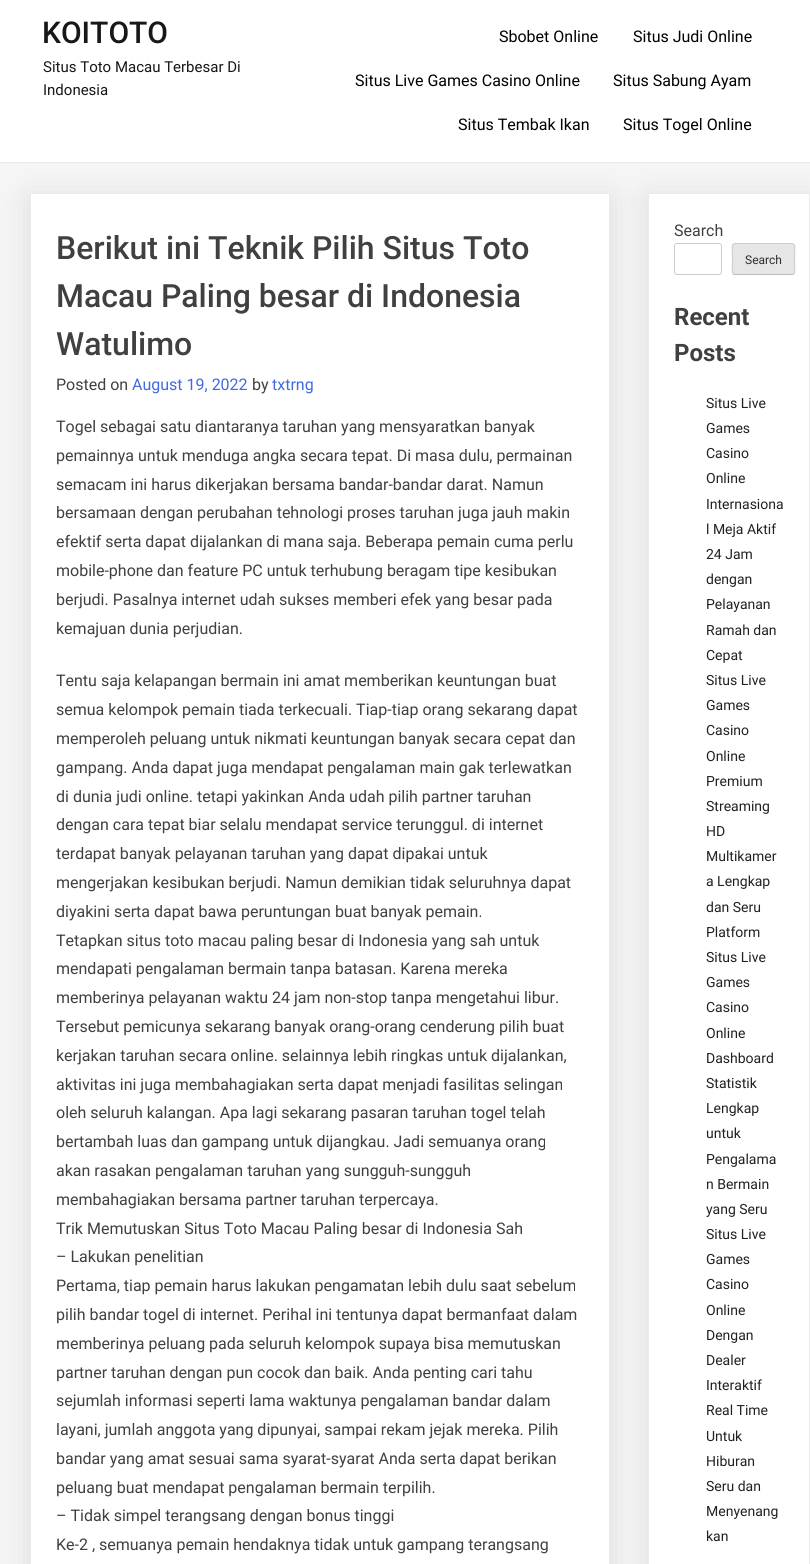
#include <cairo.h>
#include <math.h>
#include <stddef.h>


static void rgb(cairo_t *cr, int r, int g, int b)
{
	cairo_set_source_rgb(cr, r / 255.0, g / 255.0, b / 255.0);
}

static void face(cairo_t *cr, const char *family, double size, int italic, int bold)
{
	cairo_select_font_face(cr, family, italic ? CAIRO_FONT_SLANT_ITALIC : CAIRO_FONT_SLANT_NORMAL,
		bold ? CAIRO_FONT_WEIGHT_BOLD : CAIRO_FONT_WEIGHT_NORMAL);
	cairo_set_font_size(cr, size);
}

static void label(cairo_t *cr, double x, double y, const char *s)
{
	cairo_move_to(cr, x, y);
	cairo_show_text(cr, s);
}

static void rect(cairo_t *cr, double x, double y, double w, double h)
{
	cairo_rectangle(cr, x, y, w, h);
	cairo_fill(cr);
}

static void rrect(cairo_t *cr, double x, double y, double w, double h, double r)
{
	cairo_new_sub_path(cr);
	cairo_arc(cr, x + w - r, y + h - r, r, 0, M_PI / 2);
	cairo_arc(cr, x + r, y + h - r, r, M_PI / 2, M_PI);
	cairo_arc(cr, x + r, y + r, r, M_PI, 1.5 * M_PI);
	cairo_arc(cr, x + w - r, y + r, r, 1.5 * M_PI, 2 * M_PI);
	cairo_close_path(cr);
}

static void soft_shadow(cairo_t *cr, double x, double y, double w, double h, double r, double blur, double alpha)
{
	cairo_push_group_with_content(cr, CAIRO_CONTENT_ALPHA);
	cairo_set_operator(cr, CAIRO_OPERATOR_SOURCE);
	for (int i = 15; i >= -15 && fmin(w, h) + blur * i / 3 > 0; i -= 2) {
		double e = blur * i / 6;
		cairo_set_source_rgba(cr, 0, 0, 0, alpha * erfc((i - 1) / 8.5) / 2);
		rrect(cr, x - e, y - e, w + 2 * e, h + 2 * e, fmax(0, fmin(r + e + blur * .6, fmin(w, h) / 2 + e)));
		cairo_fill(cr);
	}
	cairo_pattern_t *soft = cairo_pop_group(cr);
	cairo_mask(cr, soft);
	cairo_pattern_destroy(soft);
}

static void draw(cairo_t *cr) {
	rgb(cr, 245, 245, 245);
	cairo_paint(cr);
	rgb(cr, 0, 0, 0);
	soft_shadow(cr, 30, 198, 580, 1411, 0, 15, 0.1);
	rgb(cr, 255, 255, 255);
	cairo_rectangle(cr, 30.5, 193.5, 579, 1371);
	cairo_fill_preserve(cr);
	rgb(cr, 234, 234, 234);
	cairo_set_line_width(cr, 1);
	cairo_stroke(cr);
	rgb(cr, 0, 0, 0);
	soft_shadow(cr, 648, 198, 162, 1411, 0, 15, 0.1);
	rgb(cr, 255, 255, 255);
	rect(cr, 0, 0, 810, 162);
	rgb(cr, 234, 234, 234);
	rect(cr, 0, 162, 810, 1);
	face(cr, "Roboto Medium", 30, 0, 0);
	rgb(cr, 23, 23, 23);
	label(cr, 42, 43, "KOITOTO");
	face(cr, "Roboto", 15, 0, 0);
	label(cr, 43, 72, "Situs Toto Macau Terbesar Di");
	label(cr, 43, 95, "Indonesia");
	face(cr, "Roboto", 16, 0, 0);
	rgb(cr, 0, 0, 0);
	label(cr, 499, 42, "Sbobet Online");
	label(cr, 633, 42, "Situs Judi Online");
	label(cr, 355, 86, "Situs Live Games Casino Online");
	label(cr, 613, 86, "Situs Sabung Ayam");
	label(cr, 458, 130, "Situs Tembak Ikan");
	label(cr, 623, 130, "Situs Togel Online");
	face(cr, "Roboto Medium", 32, 0, 0);
	rgb(cr, 64, 64, 64);
	label(cr, 56, 259, "Berikut ini Teknik Pilih Situs Toto");
	label(cr, 56, 307, "Macau Paling besar di Indonesia");
	label(cr, 56, 355, "Watulimo");
	face(cr, "Roboto", 16, 0, 0);
	label(cr, 56, 390, "Posted on");
	rgb(cr, 65, 105, 225);
	label(cr, 132, 390, "August 19, 2022");
	rgb(cr, 64, 64, 64);
	label(cr, 252, 390, "by");
	rgb(cr, 65, 105, 225);
	label(cr, 272, 390, "txtrng");
	rgb(cr, 64, 64, 64);
	label(cr, 56, 432, "Togel sebagai satu diantaranya taruhan yang mensyaratkan banyak");
	label(cr, 56, 461, "pemainnya untuk menduga angka secara tepat. Di masa dulu, permainan");
	label(cr, 56, 490, "semacam ini harus dikerjakan bersama bandar-bandar darat. Namun");
	label(cr, 56, 518, "bersamaan dengan perubahan tehnologi proses taruhan juga jauh makin");
	label(cr, 56, 547, "efektif serta dapat dijalankan di mana saja. Beberapa pemain cuma perlu");
	label(cr, 56, 576, "mobile-phone dan feature PC untuk terhubung beragam tipe kesibukan");
	label(cr, 56, 605, "berjudi. Pasalnya internet udah sukses memberi efek yang besar pada");
	label(cr, 56, 634, "kemajuan dunia perjudian.");
	label(cr, 56, 686, "Tentu saja kelapangan bermain ini amat memberikan keuntungan buat");
	label(cr, 56, 715, "semua kelompok pemain tiada terkecuali. Tiap-tiap orang sekarang dapat");
	label(cr, 56, 744, "memperoleh peluang untuk nikmati keuntungan banyak secara cepat dan");
	label(cr, 56, 773, "gampang. Anda dapat juga mendapat pengalaman main gak terlewatkan");
	label(cr, 56, 802, "di dunia judi online. tetapi yakinkan Anda udah pilih partner taruhan");
	label(cr, 56, 830, "dengan cara tepat biar selalu mendapat service terunggul. di internet");
	label(cr, 56, 859, "terdapat banyak pelayanan taruhan yang dapat dipakai untuk");
	label(cr, 56, 888, "mengerjakan kesibukan berjudi. Namun demikian tidak seluruhnya dapat");
	label(cr, 56, 917, "diyakini serta dapat bawa peruntungan buat banyak pemain.");
	label(cr, 56, 946, "Tetapkan situs toto macau paling besar di Indonesia yang sah untuk");
	label(cr, 56, 974, "mendapati pengalaman bermain tanpa batasan. Karena mereka");
	label(cr, 56, 1003, "memberinya pelayanan waktu 24 jam non-stop tanpa mengetahui libur.");
	label(cr, 56, 1032, "Tersebut pemicunya sekarang banyak orang-orang cenderung pilih buat");
	label(cr, 56, 1061, "kerjakan taruhan secara online. selainnya lebih ringkas untuk dijalankan,");
	label(cr, 56, 1090, "aktivitas ini juga membahagiakan serta dapat menjadi fasilitas selingan");
	label(cr, 56, 1118, "oleh seluruh kalangan. Apa lagi sekarang pasaran taruhan togel telah");
	label(cr, 56, 1147, "bertambah luas dan gampang untuk dijangkau. Jadi semuanya orang");
	label(cr, 56, 1176, "akan rasakan pengalaman taruhan yang sungguh-sungguh");
	label(cr, 56, 1205, "membahagiakan bersama partner taruhan terpercaya.");
	label(cr, 56, 1234, "Trik Memutuskan Situs Toto Macau Paling besar di Indonesia Sah");
	label(cr, 56, 1262, "– Lakukan penelitian");
	label(cr, 56, 1291, "Pertama, tiap pemain harus lakukan pengamatan lebih dulu saat sebelum");
	label(cr, 56, 1320, "pilih bandar togel di internet. Perihal ini tentunya dapat bermanfaat dalam");
	label(cr, 56, 1349, "memberinya peluang pada seluruh kelompok supaya bisa memutuskan");
	label(cr, 56, 1378, "partner taruhan dengan pun cocok dan baik. Anda penting cari tahu");
	label(cr, 56, 1406, "sejumlah informasi seperti lama waktunya pengalaman bandar dalam");
	label(cr, 56, 1435, "layani, jumlah anggota yang dipunyai, sampai rekam jejak mereka. Pilih");
	label(cr, 56, 1464, "bandar yang amat sesuai sama syarat-syarat Anda serta dapat berikan");
	label(cr, 56, 1493, "peluang buat mendapat pengalaman bermain terpilih.");
	label(cr, 56, 1521, "– Tidak simpel terangsang dengan bonus tinggi");
	label(cr, 56, 1550, "Ke-2 , semuanya pemain hendaknya tidak untuk gampang terangsang");
	rgb(cr, 255, 255, 255);
	cairo_rectangle(cr, 648.5, 193.5, 161, 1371);
	cairo_fill_preserve(cr);
	rgb(cr, 234, 234, 234);
	cairo_stroke(cr);
	rgb(cr, 64, 64, 64);
	label(cr, 674, 236, "Search");
	rrect(cr, 674.5, 243.5, 47, 31, 2.5);
	rgb(cr, 204, 204, 204);
	cairo_stroke(cr);
	rgb(cr, 230, 230, 230);
	rrect(cr, 732, 243, 63, 32, 3);
	cairo_fill(cr);
	cairo_new_path(cr);
	cairo_move_to(cr, 794, 274);
	cairo_line_to(cr, 792, 274.5);
	cairo_line_to(cr, 735, 274.5);
	cairo_line_to(cr, 733, 274);
	rgb(cr, 187, 187, 187);
	cairo_stroke(cr);
	cairo_new_path(cr);
	cairo_move_to(cr, 733, 274);
	cairo_curve_to(cr, 731.5, 272, 732.5, 261.5, 732.5, 259);
	cairo_curve_to(cr, 732.5, 242, 729, 243.5, 744.5, 243.5);
	cairo_line_to(cr, 782.5, 243.5);
	cairo_curve_to(cr, 798, 243.5, 794.5, 242, 794.5, 259);
	cairo_curve_to(cr, 794.5, 261.5, 795.5, 272, 794, 274);
	rgb(cr, 204, 204, 204);
	cairo_stroke(cr);
	face(cr, "Roboto", 12, 0, 0);
	rgb(cr, 46, 46, 46);
	label(cr, 745, 264, "Search");
	face(cr, "Roboto", 24, 0, 1);
	rgb(cr, 64, 64, 64);
	label(cr, 674, 325, "Recent");
	label(cr, 674, 361, "Posts");
	face(cr, "Roboto", 14, 0, 0);
	rgb(cr, 33, 33, 33);
	label(cr, 706, 408, "Situs Live");
	label(cr, 706, 433, "Games");
	label(cr, 706, 458, "Casino");
	label(cr, 706, 483, "Online");
	label(cr, 706, 509, "Internasiona");
	label(cr, 706, 534, "l Meja Aktif");
	label(cr, 706, 559, "24 Jam");
	label(cr, 706, 584, "dengan");
	label(cr, 706, 609, "Pelayanan");
	label(cr, 706, 635, "Ramah dan");
	label(cr, 706, 660, "Cepat");
	label(cr, 706, 685, "Situs Live");
	label(cr, 706, 710, "Games");
	label(cr, 706, 735, "Casino");
	label(cr, 706, 761, "Online");
	label(cr, 706, 786, "Premium");
	label(cr, 706, 811, "Streaming");
	label(cr, 706, 836, "HD");
	label(cr, 706, 861, "Multikamer");
	label(cr, 706, 886, "a Lengkap");
	label(cr, 706, 912, "dan Seru");
	label(cr, 706, 937, "Platform");
	label(cr, 706, 962, "Situs Live");
	label(cr, 706, 987, "Games");
	label(cr, 706, 1012, "Casino");
	label(cr, 706, 1038, "Online");
	label(cr, 706, 1063, "Dashboard");
	label(cr, 706, 1088, "Statistik");
	label(cr, 706, 1113, "Lengkap");
	label(cr, 706, 1138, "untuk");
	label(cr, 706, 1164, "Pengalama");
	label(cr, 706, 1189, "n Bermain");
	label(cr, 706, 1214, "yang Seru");
	label(cr, 706, 1239, "Situs Live");
	label(cr, 706, 1264, "Games");
	label(cr, 706, 1289, "Casino");
	label(cr, 706, 1315, "Online");
	label(cr, 706, 1340, "Dengan");
	label(cr, 706, 1365, "Dealer");
	label(cr, 706, 1390, "Interaktif");
	label(cr, 706, 1415, "Real Time");
	label(cr, 706, 1441, "Untuk");
	label(cr, 706, 1466, "Hiburan");
	label(cr, 706, 1491, "Seru dan");
	label(cr, 706, 1516, "Menyenang");
	label(cr, 706, 1541, "kan");
}

int main(void) {
	cairo_surface_t *surface = cairo_image_surface_create(CAIRO_FORMAT_RGB24, 810, 1564);
	cairo_t *cr = cairo_create(surface);
	cairo_font_options_t *options = cairo_font_options_create();
	cairo_font_options_set_hint_metrics(options, CAIRO_HINT_METRICS_OFF);
	cairo_font_options_set_hint_style(options, CAIRO_HINT_STYLE_NONE);
	cairo_set_font_options(cr, options);
	cairo_set_miter_limit(cr, 4);
	draw(cr);
	cairo_surface_write_to_png(surface, "render.png");
	cairo_font_options_destroy(options);
	cairo_destroy(cr);
	cairo_surface_destroy(surface);
	return 0;
}
